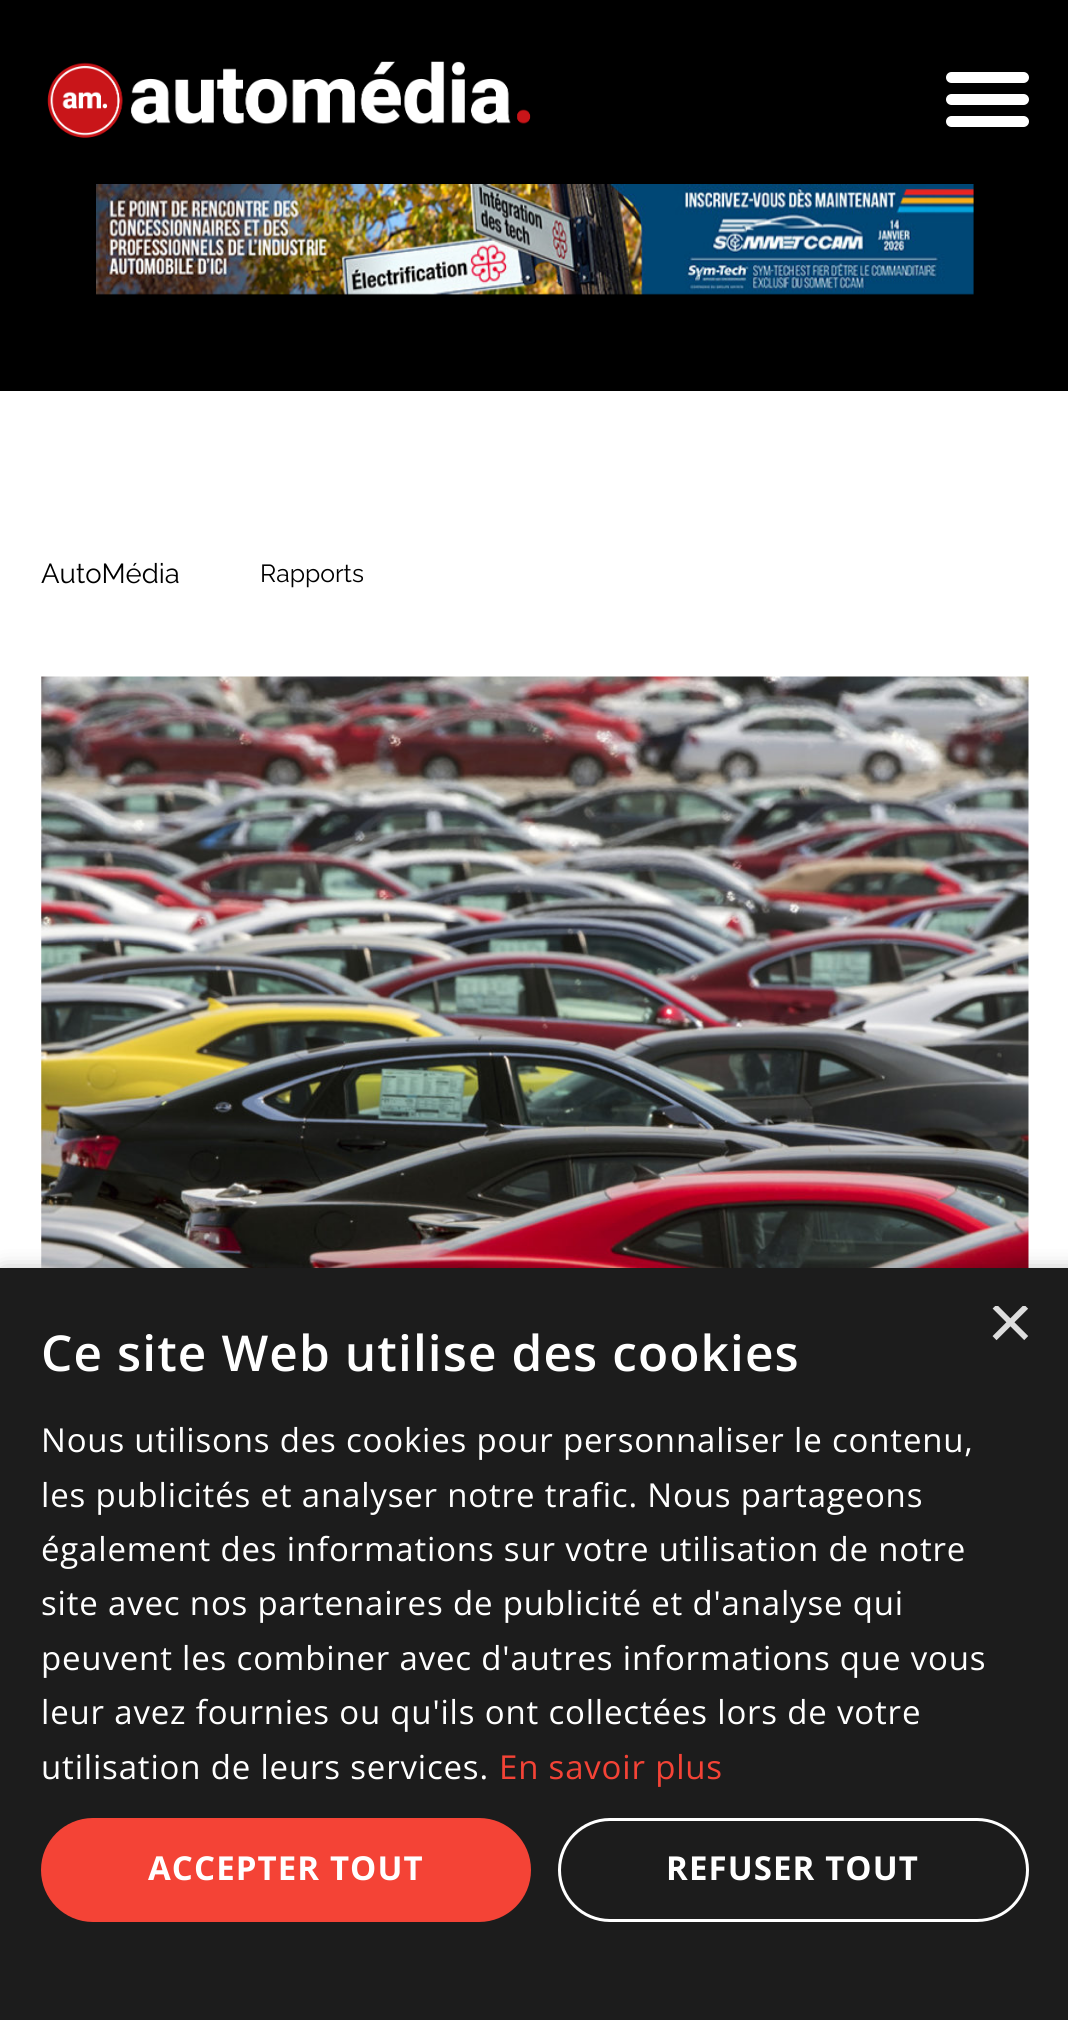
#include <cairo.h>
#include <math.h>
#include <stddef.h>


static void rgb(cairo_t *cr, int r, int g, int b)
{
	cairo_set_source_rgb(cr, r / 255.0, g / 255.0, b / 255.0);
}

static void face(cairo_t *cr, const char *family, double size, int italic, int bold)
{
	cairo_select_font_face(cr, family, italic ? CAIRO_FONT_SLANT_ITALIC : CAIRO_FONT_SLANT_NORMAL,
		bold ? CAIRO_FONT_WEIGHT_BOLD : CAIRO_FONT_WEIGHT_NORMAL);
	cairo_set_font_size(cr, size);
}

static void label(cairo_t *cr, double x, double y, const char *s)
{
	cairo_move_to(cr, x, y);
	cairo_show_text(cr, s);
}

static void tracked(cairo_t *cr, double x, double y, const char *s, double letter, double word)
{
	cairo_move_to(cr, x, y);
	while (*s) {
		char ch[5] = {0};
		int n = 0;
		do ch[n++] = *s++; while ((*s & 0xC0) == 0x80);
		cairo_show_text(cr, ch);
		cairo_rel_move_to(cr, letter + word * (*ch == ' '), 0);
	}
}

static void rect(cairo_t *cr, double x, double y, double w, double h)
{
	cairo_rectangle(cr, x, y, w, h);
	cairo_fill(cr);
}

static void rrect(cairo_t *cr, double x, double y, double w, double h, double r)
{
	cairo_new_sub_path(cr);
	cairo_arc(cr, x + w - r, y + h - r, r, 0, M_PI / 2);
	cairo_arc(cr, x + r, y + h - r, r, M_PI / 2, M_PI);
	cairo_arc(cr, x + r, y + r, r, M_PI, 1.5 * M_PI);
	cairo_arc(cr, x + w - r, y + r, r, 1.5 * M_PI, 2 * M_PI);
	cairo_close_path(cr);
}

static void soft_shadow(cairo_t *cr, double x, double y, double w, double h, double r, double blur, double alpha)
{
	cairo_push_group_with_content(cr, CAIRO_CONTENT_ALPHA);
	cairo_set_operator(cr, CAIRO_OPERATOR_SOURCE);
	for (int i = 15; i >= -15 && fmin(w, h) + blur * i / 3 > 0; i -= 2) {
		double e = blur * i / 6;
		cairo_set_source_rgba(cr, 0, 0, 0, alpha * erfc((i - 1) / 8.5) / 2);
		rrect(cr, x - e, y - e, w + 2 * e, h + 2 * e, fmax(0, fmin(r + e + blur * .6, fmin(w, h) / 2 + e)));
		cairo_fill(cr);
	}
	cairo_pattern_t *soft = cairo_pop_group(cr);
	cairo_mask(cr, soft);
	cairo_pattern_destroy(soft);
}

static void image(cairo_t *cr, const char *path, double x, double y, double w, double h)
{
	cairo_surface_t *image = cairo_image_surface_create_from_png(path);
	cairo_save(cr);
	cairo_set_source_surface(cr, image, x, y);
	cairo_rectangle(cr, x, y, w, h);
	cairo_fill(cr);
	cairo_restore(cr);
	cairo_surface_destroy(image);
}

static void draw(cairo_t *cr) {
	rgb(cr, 255, 255, 255);
	cairo_paint(cr);
	rgb(cr, 0, 0, 0);
	rect(cr, 0, 0, 1068, 391);
	image(cr, "image0.png", 47, 61, 484, 77);
	rgb(cr, 255, 255, 255);
	rrect(cr, 946, 72, 83, 11, 5.5);
	cairo_fill(cr);
	rrect(cr, 946, 94, 83, 11, 5.5);
	cairo_fill(cr);
	rrect(cr, 946, 116, 83, 11, 5.5);
	cairo_fill(cr);
	image(cr, "image1.png", 96, 184, 878, 111);
	face(cr, "Raleway", 27.5, 0, 0);
	rgb(cr, 0, 0, 0);
	label(cr, 41, 583, "AutoMédia");
	face(cr, "Raleway", 24.75, 0, 0);
	label(cr, 260, 582, "Rapports");
	image(cr, "image2.png", 41, 676, 988, 592);
	rgb(cr, 0, 0, 0);
	soft_shadow(cr, 3, 1273, 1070, 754, 0, 11, 0.35);
	rgb(cr, 28, 28, 28);
	rect(cr, 0, 1268, 1068, 752);
	cairo_save(cr);
	cairo_rectangle(cr, 987, 1306, 42, 42);
	cairo_clip(cr);
	face(cr, "Liberation Sans", 80, 0, 0);
	rgb(cr, 221, 221, 221);
	label(cr, 987, 1349, "×");
	cairo_restore(cr);
	face(cr, "Open Sans SemiBold", 49.5, 0, 0);
	rgb(cr, 255, 255, 255);
	tracked(cr, 41, 1371, "Ce site Web utilise des cookies", 1.1, 0);
	face(cr, "Open Sans", 33, 0, 0);
	tracked(cr, 41, 1452, "Nous utilisons des cookies pour personnaliser le contenu,", 0.82, 0);
	tracked(cr, 41, 1507, "les publicités et analyser notre trafic. Nous partageons", 0.82, 0);
	tracked(cr, 41, 1561, "également des informations sur votre utilisation de notre", 0.82, 0);
	tracked(cr, 41, 1615, "site avec nos partenaires de publicité et d'analyse qui", 0.82, 0);
	tracked(cr, 41, 1670, "peuvent les combiner avec d'autres informations que vous", 0.82, 0);
	tracked(cr, 41, 1724, "leur avez fournies ou qu'ils ont collectées lors de votre", 0.82, 0);
	tracked(cr, 41, 1779, "utilisation de leurs services.", 0.82, 0);
	rgb(cr, 244, 67, 54);
	tracked(cr, 499, 1779, "En savoir plus", 0.82, 0);
	rrect(cr, 41, 1818, 490, 104, 52);
	cairo_fill(cr);
	face(cr, "Open Sans", 33, 0, 1);
	rgb(cr, 255, 255, 255);
	tracked(cr, 148, 1880, "ACCEPTER TOUT", 1.1, 0);
	rrect(cr, 559.5, 1819.5, 468, 101, 50.5);
	cairo_set_line_width(cr, 3);
	cairo_stroke(cr);
	tracked(cr, 666, 1880, "REFUSER TOUT", 1.1, 0);
}

int main(void) {
	cairo_surface_t *surface = cairo_image_surface_create(CAIRO_FORMAT_RGB24, 1068, 2020);
	cairo_t *cr = cairo_create(surface);
	cairo_font_options_t *options = cairo_font_options_create();
	cairo_font_options_set_hint_metrics(options, CAIRO_HINT_METRICS_OFF);
	cairo_font_options_set_hint_style(options, CAIRO_HINT_STYLE_NONE);
	cairo_set_font_options(cr, options);
	cairo_set_miter_limit(cr, 4);
	draw(cr);
	cairo_surface_write_to_png(surface, "render.png");
	cairo_font_options_destroy(options);
	cairo_destroy(cr);
	cairo_surface_destroy(surface);
	return 0;
}
